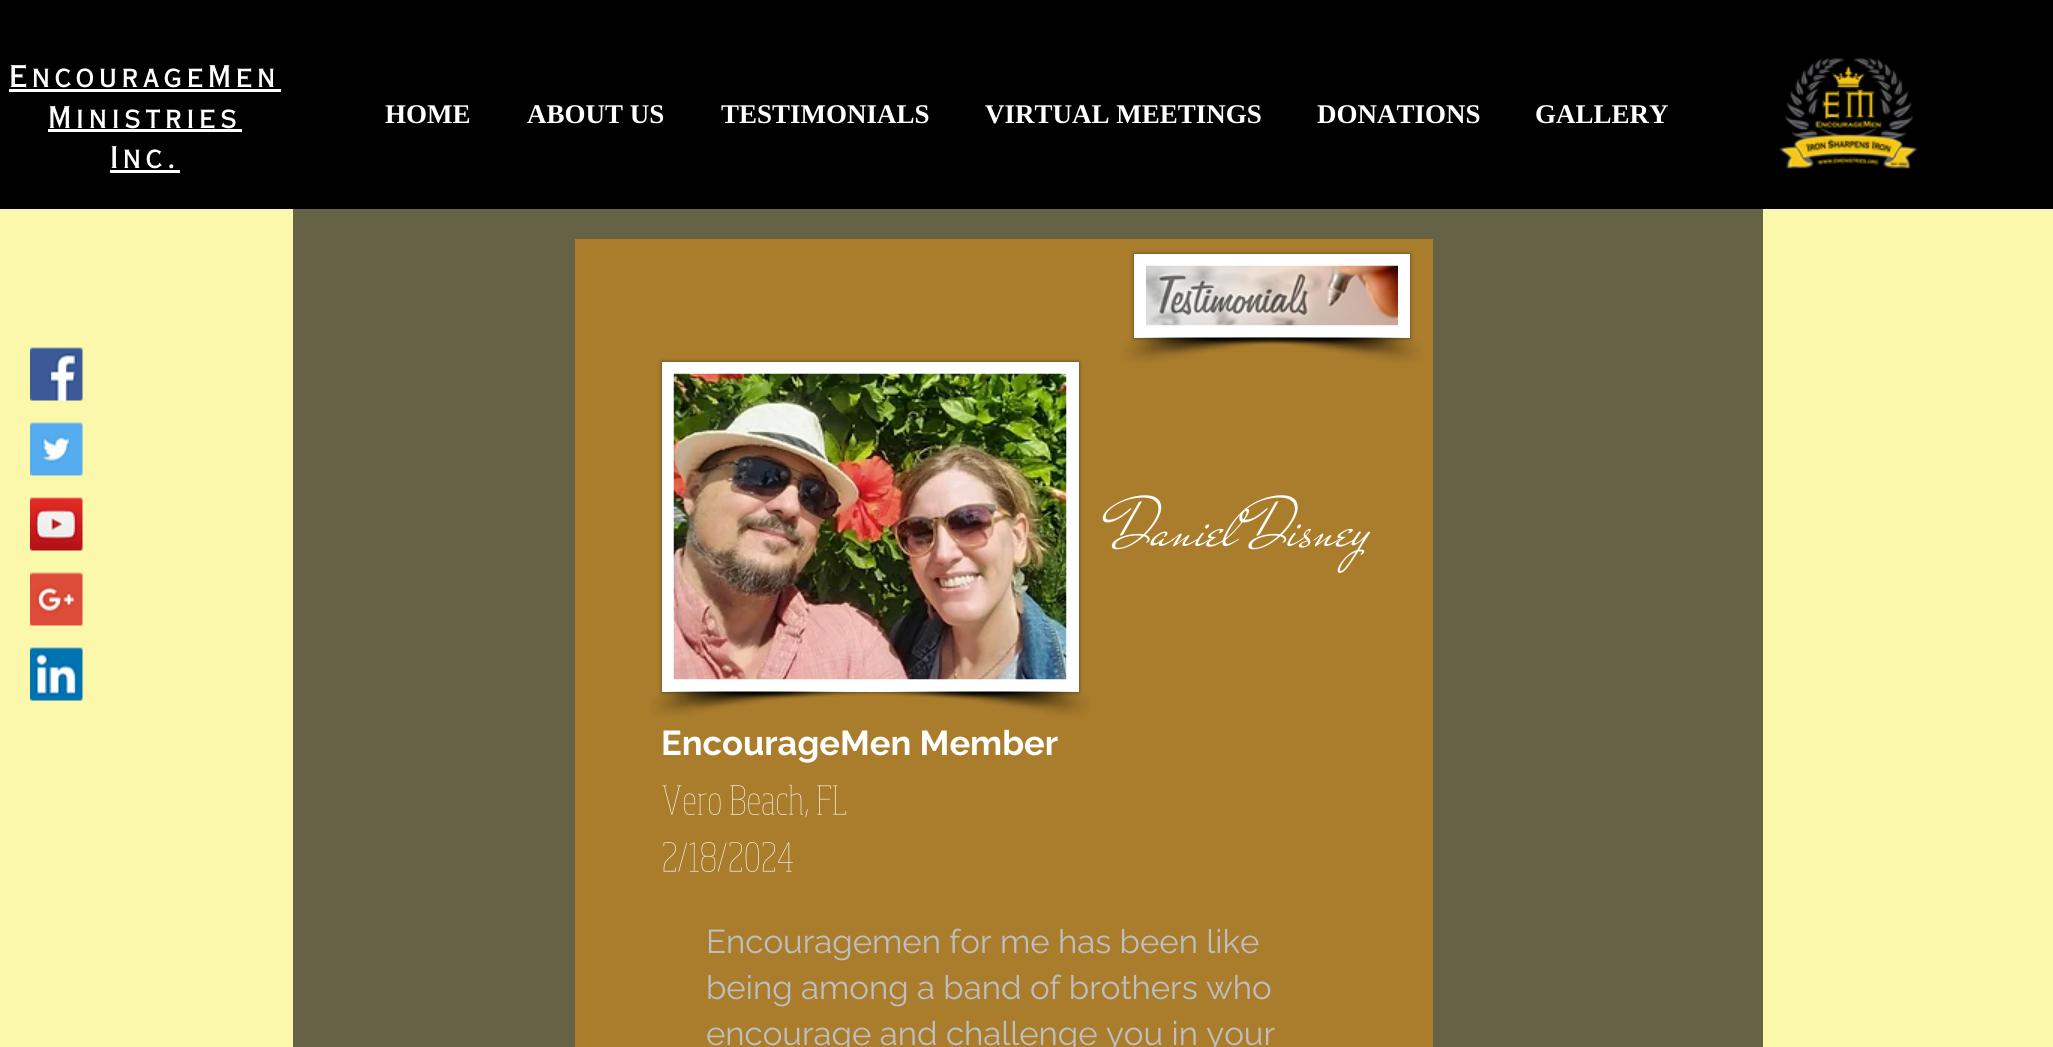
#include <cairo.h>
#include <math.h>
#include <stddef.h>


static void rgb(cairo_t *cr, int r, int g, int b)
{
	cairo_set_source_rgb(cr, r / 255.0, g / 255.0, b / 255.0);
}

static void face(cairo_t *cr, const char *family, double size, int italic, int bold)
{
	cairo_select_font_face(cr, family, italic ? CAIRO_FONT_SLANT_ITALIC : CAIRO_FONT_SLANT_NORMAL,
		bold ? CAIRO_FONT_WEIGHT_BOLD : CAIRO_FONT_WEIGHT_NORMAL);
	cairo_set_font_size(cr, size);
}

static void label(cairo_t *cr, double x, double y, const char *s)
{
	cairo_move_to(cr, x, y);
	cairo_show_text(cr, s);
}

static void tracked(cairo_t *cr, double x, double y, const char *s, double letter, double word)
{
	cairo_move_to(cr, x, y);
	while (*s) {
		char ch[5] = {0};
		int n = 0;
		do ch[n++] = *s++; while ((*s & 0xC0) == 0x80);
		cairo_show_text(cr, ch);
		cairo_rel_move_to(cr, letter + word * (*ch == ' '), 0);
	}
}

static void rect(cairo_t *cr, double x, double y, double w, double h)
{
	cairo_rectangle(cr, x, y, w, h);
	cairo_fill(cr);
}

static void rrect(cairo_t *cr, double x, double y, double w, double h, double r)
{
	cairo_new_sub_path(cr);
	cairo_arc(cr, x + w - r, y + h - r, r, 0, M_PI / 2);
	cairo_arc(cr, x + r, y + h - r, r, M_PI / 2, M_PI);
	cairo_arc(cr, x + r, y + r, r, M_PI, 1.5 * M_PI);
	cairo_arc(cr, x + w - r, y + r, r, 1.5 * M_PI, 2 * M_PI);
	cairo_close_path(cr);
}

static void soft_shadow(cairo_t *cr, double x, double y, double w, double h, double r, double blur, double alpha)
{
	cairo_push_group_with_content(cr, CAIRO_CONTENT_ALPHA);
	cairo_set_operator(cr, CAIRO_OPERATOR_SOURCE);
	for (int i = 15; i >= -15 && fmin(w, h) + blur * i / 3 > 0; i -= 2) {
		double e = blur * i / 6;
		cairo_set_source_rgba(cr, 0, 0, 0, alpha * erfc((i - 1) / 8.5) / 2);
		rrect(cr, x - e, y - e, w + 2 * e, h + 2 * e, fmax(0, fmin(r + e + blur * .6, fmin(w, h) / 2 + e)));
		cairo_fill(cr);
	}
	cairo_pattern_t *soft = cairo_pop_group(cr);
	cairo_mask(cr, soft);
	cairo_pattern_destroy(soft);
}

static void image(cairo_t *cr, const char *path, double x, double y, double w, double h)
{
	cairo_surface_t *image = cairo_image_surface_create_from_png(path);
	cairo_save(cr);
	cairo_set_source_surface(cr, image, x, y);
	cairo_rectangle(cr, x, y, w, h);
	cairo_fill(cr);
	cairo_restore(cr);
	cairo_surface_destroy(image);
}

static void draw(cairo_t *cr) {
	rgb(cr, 251, 247, 171);
	cairo_paint(cr);
	rgb(cr, 0, 0, 0);
	rect(cr, 0, 0, 2053, 209);
	face(cr, "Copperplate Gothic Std", 30, 0, 0);
	rgb(cr, 255, 255, 255);
	tracked(cr, 9, 87, "EncourageMen", 4.5, 0);
	rect(cr, 9, 89, 272, 3);
	tracked(cr, 48, 128, "Ministries", 4.5, 0);
	rect(cr, 48, 129, 194, 3);
	tracked(cr, 110, 168, "Inc.", 4.5, 0);
	rect(cr, 110, 170, 70, 3);
	face(cr, "Liberation Serif", 27, 0, 1);
	label(cr, 385, 123, "HOME");
	label(cr, 527, 123, "ABOUT US");
	label(cr, 721, 123, "TESTIMONIALS");
	label(cr, 985, 123, "VIRTUAL MEETINGS");
	label(cr, 1317, 123, "DONATIONS");
	label(cr, 1535, 123, "GALLERY");
	image(cr, "image0.png", 1779, 58, 139, 112);
	rgb(cr, 101, 98, 69);
	rect(cr, 293, 209, 1470, 838);
	image(cr, "image1.png", 30, 347, 53, 54);
	image(cr, "image2.png", 30, 422, 53, 54);
	image(cr, "image3.png", 30, 497, 53, 54);
	image(cr, "image4.png", 30, 572, 53, 54);
	image(cr, "image5.png", 30, 647, 53, 54);
	rgb(cr, 170, 125, 45);
	rect(cr, 575, 239, 858, 808);
	rgb(cr, 0, 0, 0);
	soft_shadow(cr, 1134, 254, 276, 84, 0, 2, 0.5);
	rgb(cr, 255, 255, 255);
	rect(cr, 1134, 254, 276, 84);
	image(cr, "image6.png", 1146, 265, 252, 61);
	image(cr, "image7.png", 1123, 337, 217, 26);
	image(cr, "image8.png", 1218, 337, 203, 26);
	rgb(cr, 0, 0, 0);
	soft_shadow(cr, 662, 362, 417, 330, 0, 2, 0.5);
	rgb(cr, 255, 255, 255);
	rect(cr, 662, 362, 417, 330);
	image(cr, "image9.png", 673, 373, 394, 307);
	image(cr, "image10.png", 650, 691, 217, 26);
	image(cr, "image11.png", 873, 691, 217, 26);
	face(cr, "Mr De Haviland", 67.5, 0, 0);
	label(cr, 1112, 545, "Daniel Disney");
	face(cr, "Raleway", 34.5, 0, 1);
	label(cr, 661, 755, "EncourageMen Member");
	image(cr, "image12.png", 662, 784, 185, 34);
	image(cr, "image13.png", 663, 842, 130, 30);
	face(cr, "Raleway", 33, 0, 0);
	rgb(cr, 191, 191, 191);
	label(cr, 706, 953, "Encouragemen for me has been like");
	label(cr, 706, 999, "being among a band of brothers who");
	label(cr, 706, 1045, "encourage and challenge you in your");
}

int main(void) {
	cairo_surface_t *surface = cairo_image_surface_create(CAIRO_FORMAT_RGB24, 2053, 1047);
	cairo_t *cr = cairo_create(surface);
	cairo_font_options_t *options = cairo_font_options_create();
	cairo_font_options_set_hint_metrics(options, CAIRO_HINT_METRICS_OFF);
	cairo_font_options_set_hint_style(options, CAIRO_HINT_STYLE_NONE);
	cairo_set_font_options(cr, options);
	cairo_set_miter_limit(cr, 4);
	draw(cr);
	cairo_surface_write_to_png(surface, "render.png");
	cairo_font_options_destroy(options);
	cairo_destroy(cr);
	cairo_surface_destroy(surface);
	return 0;
}
